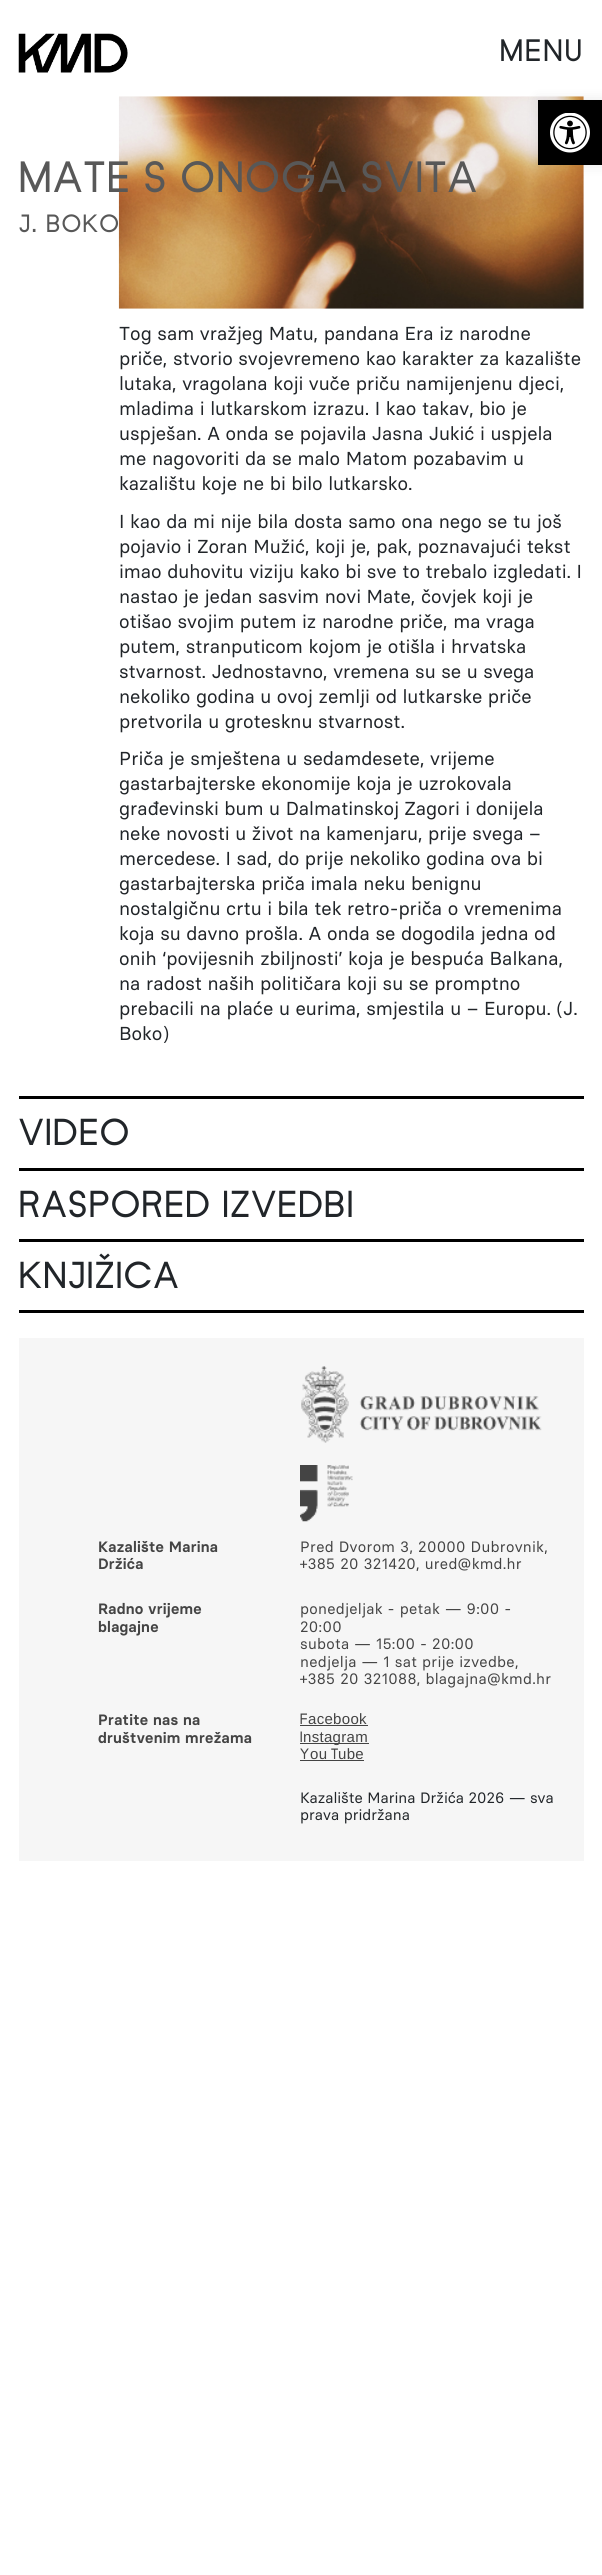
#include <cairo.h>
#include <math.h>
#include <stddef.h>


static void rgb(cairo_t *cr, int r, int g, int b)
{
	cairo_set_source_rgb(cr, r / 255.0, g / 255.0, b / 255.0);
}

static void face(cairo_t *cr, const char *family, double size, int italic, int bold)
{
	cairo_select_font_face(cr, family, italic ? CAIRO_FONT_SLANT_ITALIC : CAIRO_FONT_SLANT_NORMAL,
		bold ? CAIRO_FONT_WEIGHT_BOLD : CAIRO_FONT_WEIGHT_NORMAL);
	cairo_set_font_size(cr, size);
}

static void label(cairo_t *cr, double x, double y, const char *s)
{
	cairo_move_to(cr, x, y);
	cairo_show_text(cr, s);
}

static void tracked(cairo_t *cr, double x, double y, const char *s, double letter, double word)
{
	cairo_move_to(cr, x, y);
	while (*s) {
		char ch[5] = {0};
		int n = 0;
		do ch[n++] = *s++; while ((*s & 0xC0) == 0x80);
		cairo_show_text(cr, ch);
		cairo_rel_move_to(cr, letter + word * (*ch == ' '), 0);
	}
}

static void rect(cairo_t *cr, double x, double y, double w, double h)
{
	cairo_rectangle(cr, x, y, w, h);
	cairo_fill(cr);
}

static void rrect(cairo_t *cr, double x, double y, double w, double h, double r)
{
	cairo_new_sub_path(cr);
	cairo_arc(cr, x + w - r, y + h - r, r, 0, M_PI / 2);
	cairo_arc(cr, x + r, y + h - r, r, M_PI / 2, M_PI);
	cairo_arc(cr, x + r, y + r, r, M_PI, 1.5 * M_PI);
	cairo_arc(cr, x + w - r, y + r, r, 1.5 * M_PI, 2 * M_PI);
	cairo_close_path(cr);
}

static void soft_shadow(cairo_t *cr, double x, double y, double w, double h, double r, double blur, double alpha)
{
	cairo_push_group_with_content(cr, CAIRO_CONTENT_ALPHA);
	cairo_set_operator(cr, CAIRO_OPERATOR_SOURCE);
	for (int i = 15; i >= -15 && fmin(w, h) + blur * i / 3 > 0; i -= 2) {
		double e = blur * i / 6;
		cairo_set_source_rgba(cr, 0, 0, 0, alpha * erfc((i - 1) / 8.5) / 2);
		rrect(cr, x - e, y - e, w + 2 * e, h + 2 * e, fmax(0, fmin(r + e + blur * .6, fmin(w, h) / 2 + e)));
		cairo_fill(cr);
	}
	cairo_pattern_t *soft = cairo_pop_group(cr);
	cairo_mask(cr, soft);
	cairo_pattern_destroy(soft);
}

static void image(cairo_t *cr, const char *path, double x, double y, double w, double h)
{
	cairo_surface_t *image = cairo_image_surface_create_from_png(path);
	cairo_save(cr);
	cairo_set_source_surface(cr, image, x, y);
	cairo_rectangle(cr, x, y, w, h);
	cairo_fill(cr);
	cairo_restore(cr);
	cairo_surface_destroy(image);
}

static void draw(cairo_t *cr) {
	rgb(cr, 255, 255, 255);
	cairo_paint(cr);
	image(cr, "image0.png", 18, 33, 110, 40);
	face(cr, "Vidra", 31, 0, 0);
	rgb(cr, 33, 37, 41);
	tracked(cr, 500, 61, "MENU", 2.5, 0);
	image(cr, "image1.png", 118, 96, 466, 213);
	face(cr, "Vidra", 43.75, 0, 0);
	rgb(cr, 88, 88, 88);
	tracked(cr, 19, 192, "MATE S ONOGA SVITA", 2.2, 0);
	face(cr, "Vidra", 25, 0, 0);
	tracked(cr, 19, 232, "J. BOKO", 1.75, 0);
	face(cr, "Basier", 18.75, 0, 0);
	rgb(cr, 33, 37, 41);
	label(cr, 119, 340, "Tog sam vražjeg Matu, pandana Era iz narodne");
	label(cr, 119, 365, "priče, stvorio svojevremeno kao karakter za kazalište");
	label(cr, 119, 390, "lutaka, vragolana koji vuče priču namijenjenu djeci,");
	label(cr, 119, 415, "mladima i lutkarskom izrazu. I kao takav, bio je");
	label(cr, 119, 440, "uspješan. A onda se pojavila Jasna Jukić i uspjela");
	label(cr, 119, 465, "me nagovoriti da se malo Matom pozabavim u");
	label(cr, 119, 490, "kazalištu koje ne bi bilo lutkarsko.");
	label(cr, 119, 528, "I kao da mi nije bila dosta samo ona nego se tu još");
	label(cr, 119, 553, "pojavio i Zoran Mužić, koji je, pak, poznavajući tekst");
	label(cr, 119, 578, "imao duhovitu viziju kako bi sve to trebalo izgledati. I");
	label(cr, 119, 603, "nastao je jedan sasvim novi Mate, čovjek koji je");
	label(cr, 119, 628, "otišao svojim putem iz narodne priče, ma vraga");
	label(cr, 119, 653, "putem, stranputicom kojom je otišla i hrvatska");
	label(cr, 119, 678, "stvarnost. Jednostavno, vremena su se u svega");
	label(cr, 119, 703, "nekoliko godina u ovoj zemlji od lutkarske priče");
	label(cr, 119, 728, "pretvorila u grotesknu stvarnost.");
	label(cr, 119, 765, "Priča je smještena u sedamdesete, vrijeme");
	label(cr, 119, 790, "gastarbajterske ekonomije koja je uzrokovala");
	label(cr, 119, 815, "građevinski bum u Dalmatinskoj Zagori i donijela");
	label(cr, 119, 840, "neke novosti u život na kamenjaru, prije svega –");
	label(cr, 119, 865, "mercedese. I sad, do prije nekoliko godina ova bi");
	label(cr, 119, 890, "gastarbajterska priča imala neku benignu");
	label(cr, 119, 915, "nostalgičnu crtu i bila tek retro-priča o vremenima");
	label(cr, 119, 940, "koja su davno prošla. A onda se dogodila jedna od");
	label(cr, 119, 965, "onih ‘povijesnih zbiljnosti’ koja je bespuća Balkana,");
	label(cr, 119, 990, "na radost naših političara koji su se promptno");
	label(cr, 119, 1015, "prebacili na plaće u eurima, smjestila u – Europu. (J.");
	label(cr, 119, 1040, "Boko)");
	rgb(cr, 0, 0, 0);
	rect(cr, 19, 1096, 565, 3);
	face(cr, "Vidra", 37.5, 0, 0);
	rgb(cr, 33, 37, 41);
	tracked(cr, 19, 1145, "VIDEO", 1.9, 0);
	rgb(cr, 0, 0, 0);
	rect(cr, 19, 1168, 565, 3);
	rgb(cr, 33, 37, 41);
	tracked(cr, 19, 1217, "RASPORED IZVEDBI", 1.9, 0);
	rgb(cr, 0, 0, 0);
	rect(cr, 19, 1239, 565, 3);
	rect(cr, 19, 1310, 565, 3);
	rgb(cr, 33, 37, 41);
	tracked(cr, 19, 1288, "KNJIŽICA", 1.9, 0);
	rgb(cr, 246, 246, 246);
	rect(cr, 19, 1338, 565, 523);
	image(cr, "image2.png", 301, 1366, 241, 77);
	image(cr, "image3.png", 300, 1465, 53, 57);
	face(cr, "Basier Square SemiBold", 15, 0, 0);
	rgb(cr, 68, 68, 68);
	tracked(cr, 98, 1552, "Kazalište Marina", 0.3, 0);
	tracked(cr, 98, 1569, "Držića", 0.3, 0);
	face(cr, "Basier", 15, 0, 0);
	tracked(cr, 300, 1552, "Pred Dvorom 3, 20000 Dubrovnik,", 0.3, 0);
	tracked(cr, 300, 1569, "+385 20 321420, ured@kmd.hr", 0.3, 0);
	face(cr, "Basier Square SemiBold", 15, 0, 0);
	tracked(cr, 98, 1614, "Radno vrijeme", 0.3, 0);
	tracked(cr, 98, 1632, "blagajne", 0.3, 0);
	face(cr, "Basier", 15, 0, 0);
	tracked(cr, 300, 1614, "ponedjeljak - petak — 9:00 -", 0.3, 0);
	tracked(cr, 300, 1632, "20:00", 0.3, 0);
	tracked(cr, 300, 1649, "subota — 15:00 - 20:00", 0.3, 0);
	tracked(cr, 300, 1667, "nedjelja — 1 sat prije izvedbe,", 0.3, 0);
	tracked(cr, 300, 1684, "+385 20 321088, blagajna@kmd.hr", 0.3, 0);
	face(cr, "Basier Square SemiBold", 15, 0, 0);
	tracked(cr, 98, 1725, "Pratite nas na", 0.3, 0);
	tracked(cr, 98, 1743, "društvenim mrežama", 0.3, 0);
	face(cr, "Vidra", 15, 0, 0);
	tracked(cr, 300, 1724, "F", 0.3, 0);
	face(cr, "Liberation Sans", 15, 0, 0);
	tracked(cr, 308, 1724, "acebook", 0.3, 0);
	rect(cr, 300, 1725, 68, 1);
	face(cr, "Vidra", 15, 0, 0);
	tracked(cr, 300, 1742, "I", 0.3, 0);
	rect(cr, 300, 1743, 69, 1);
	face(cr, "Liberation Sans", 15, 0, 0);
	tracked(cr, 303, 1742, "nstagram", 0.3, 0);
	face(cr, "Vidra", 15, 0, 0);
	tracked(cr, 300, 1759, "Y", 0.3, 0);
	face(cr, "Liberation Sans", 15, 0, 0);
	tracked(cr, 310, 1759, "ou", 0.3, 0);
	rect(cr, 300, 1760, 64, 1);
	face(cr, "Vidra", 15, 0, 0);
	tracked(cr, 331, 1759, "T", 0.3, 0);
	face(cr, "Liberation Sans", 15, 0, 0);
	tracked(cr, 338, 1759, "ube", 0.3, 0);
	face(cr, "Basier", 15, 0, 0);
	rgb(cr, 33, 37, 41);
	label(cr, 300, 1803, "Kazalište Marina Držića 2026 — sva");
	label(cr, 300, 1820, "prava pridržana");
	rgb(cr, 0, 0, 0);
	soft_shadow(cr, 538, 100, 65, 65, 0, 6, 0.1);
	rgb(cr, 0, 0, 0);
	rect(cr, 538, 100, 64, 65);
	image(cr, "image4.png", 550, 113, 40, 40);
}

int main(void) {
	cairo_surface_t *surface = cairo_image_surface_create(CAIRO_FORMAT_RGB24, 602, 2575);
	cairo_t *cr = cairo_create(surface);
	cairo_font_options_t *options = cairo_font_options_create();
	cairo_font_options_set_hint_metrics(options, CAIRO_HINT_METRICS_OFF);
	cairo_font_options_set_hint_style(options, CAIRO_HINT_STYLE_NONE);
	cairo_set_font_options(cr, options);
	cairo_set_miter_limit(cr, 4);
	draw(cr);
	cairo_surface_write_to_png(surface, "render.png");
	cairo_font_options_destroy(options);
	cairo_destroy(cr);
	cairo_surface_destroy(surface);
	return 0;
}
